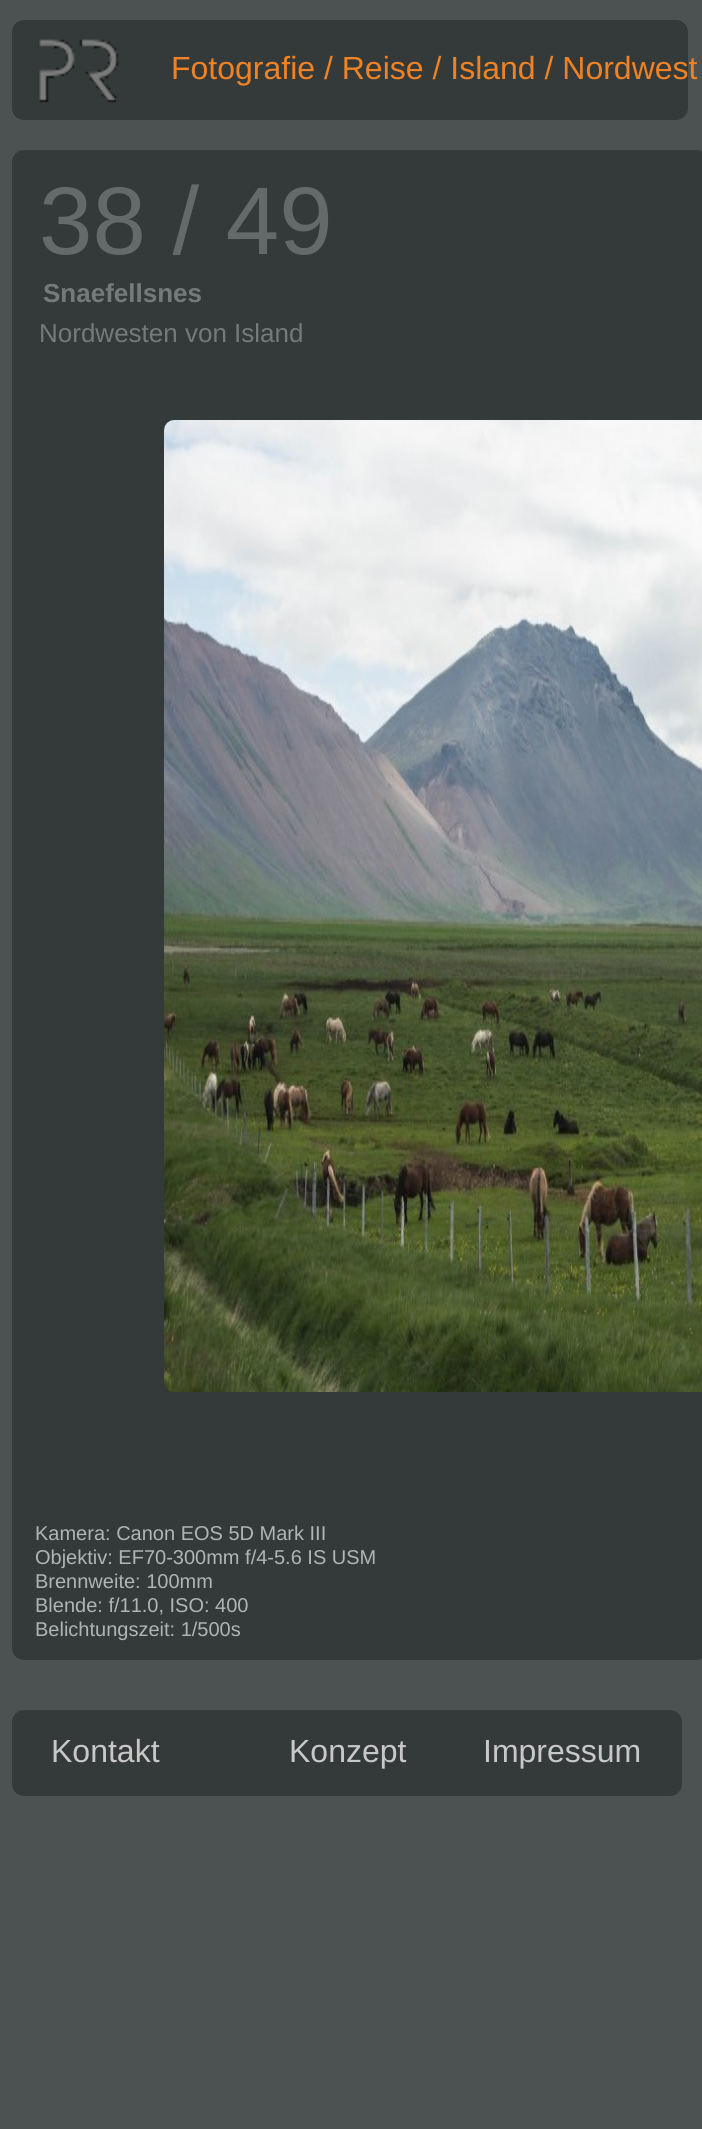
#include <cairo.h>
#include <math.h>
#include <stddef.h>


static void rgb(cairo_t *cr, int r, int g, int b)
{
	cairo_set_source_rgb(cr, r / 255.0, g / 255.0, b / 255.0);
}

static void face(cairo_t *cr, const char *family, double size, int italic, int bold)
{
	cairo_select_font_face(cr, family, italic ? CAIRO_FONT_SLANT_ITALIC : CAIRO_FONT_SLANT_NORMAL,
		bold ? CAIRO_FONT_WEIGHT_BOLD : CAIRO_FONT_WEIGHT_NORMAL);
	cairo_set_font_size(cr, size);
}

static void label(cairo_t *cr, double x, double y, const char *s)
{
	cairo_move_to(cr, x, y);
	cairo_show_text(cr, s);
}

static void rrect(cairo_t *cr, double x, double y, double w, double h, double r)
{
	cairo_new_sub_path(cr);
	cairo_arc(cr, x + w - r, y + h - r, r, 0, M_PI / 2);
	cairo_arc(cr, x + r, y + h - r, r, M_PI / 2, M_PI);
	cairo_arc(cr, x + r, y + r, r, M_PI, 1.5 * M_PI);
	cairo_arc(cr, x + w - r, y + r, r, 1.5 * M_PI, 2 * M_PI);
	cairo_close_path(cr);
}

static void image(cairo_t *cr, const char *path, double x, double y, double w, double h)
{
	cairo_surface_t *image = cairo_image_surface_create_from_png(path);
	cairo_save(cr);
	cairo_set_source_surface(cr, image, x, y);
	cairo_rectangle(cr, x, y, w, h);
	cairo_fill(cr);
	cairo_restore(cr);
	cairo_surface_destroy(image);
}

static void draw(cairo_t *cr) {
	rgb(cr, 76, 82, 82);
	cairo_paint(cr);
	rgb(cr, 52, 58, 58);
	rrect(cr, 12, 20, 676, 100, 12);
	cairo_fill(cr);
	image(cr, "image0.png", 39, 39, 80, 64);
	face(cr, "Liberation Sans", 32, 0, 0);
	rgb(cr, 239, 130, 37);
	label(cr, 171, 79, "Fotografie / Reise / Island / Nordwest");
	rgb(cr, 52, 58, 58);
	rrect(cr, 12, 150, 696, 1510, 12);
	cairo_fill(cr);
	face(cr, "Liberation Sans", 96, 0, 0);
	rgb(cr, 100, 106, 106);
	label(cr, 39, 254, "38 / 49");
	face(cr, "Liberation Sans", 26, 0, 1);
	rgb(cr, 116, 122, 122);
	label(cr, 43, 302, "Snaefellsnes");
	face(cr, "Liberation Sans", 26, 0, 0);
	label(cr, 39, 342, "Nordwesten von Island");
	image(cr, "image1.png", 164, 420, 538, 972);
	face(cr, "Liberation Sans", 20, 0, 0);
	rgb(cr, 176, 180, 180);
	label(cr, 35, 1540, "Kamera: Canon EOS 5D Mark III");
	label(cr, 35, 1564, "Objektiv: EF70-300mm f/4-5.6 IS USM");
	label(cr, 35, 1588, "Brennweite: 100mm");
	label(cr, 35, 1612, "Blende: f/11.0, ISO: 400");
	label(cr, 35, 1636, "Belichtungszeit: 1/500s");
	rgb(cr, 52, 58, 58);
	rrect(cr, 12, 1710, 670, 86, 12);
	cairo_fill(cr);
	face(cr, "Liberation Sans", 32, 0, 0);
	rgb(cr, 200, 200, 200);
	label(cr, 51, 1762, "Kontakt");
	label(cr, 289, 1762, "Konzept");
	label(cr, 483, 1762, "Impressum");
}

int main(void) {
	cairo_surface_t *surface = cairo_image_surface_create(CAIRO_FORMAT_RGB24, 702, 2129);
	cairo_t *cr = cairo_create(surface);
	cairo_font_options_t *options = cairo_font_options_create();
	cairo_font_options_set_hint_metrics(options, CAIRO_HINT_METRICS_OFF);
	cairo_font_options_set_hint_style(options, CAIRO_HINT_STYLE_NONE);
	cairo_set_font_options(cr, options);
	cairo_set_miter_limit(cr, 4);
	draw(cr);
	cairo_surface_write_to_png(surface, "render.png");
	cairo_font_options_destroy(options);
	cairo_destroy(cr);
	cairo_surface_destroy(surface);
	return 0;
}
